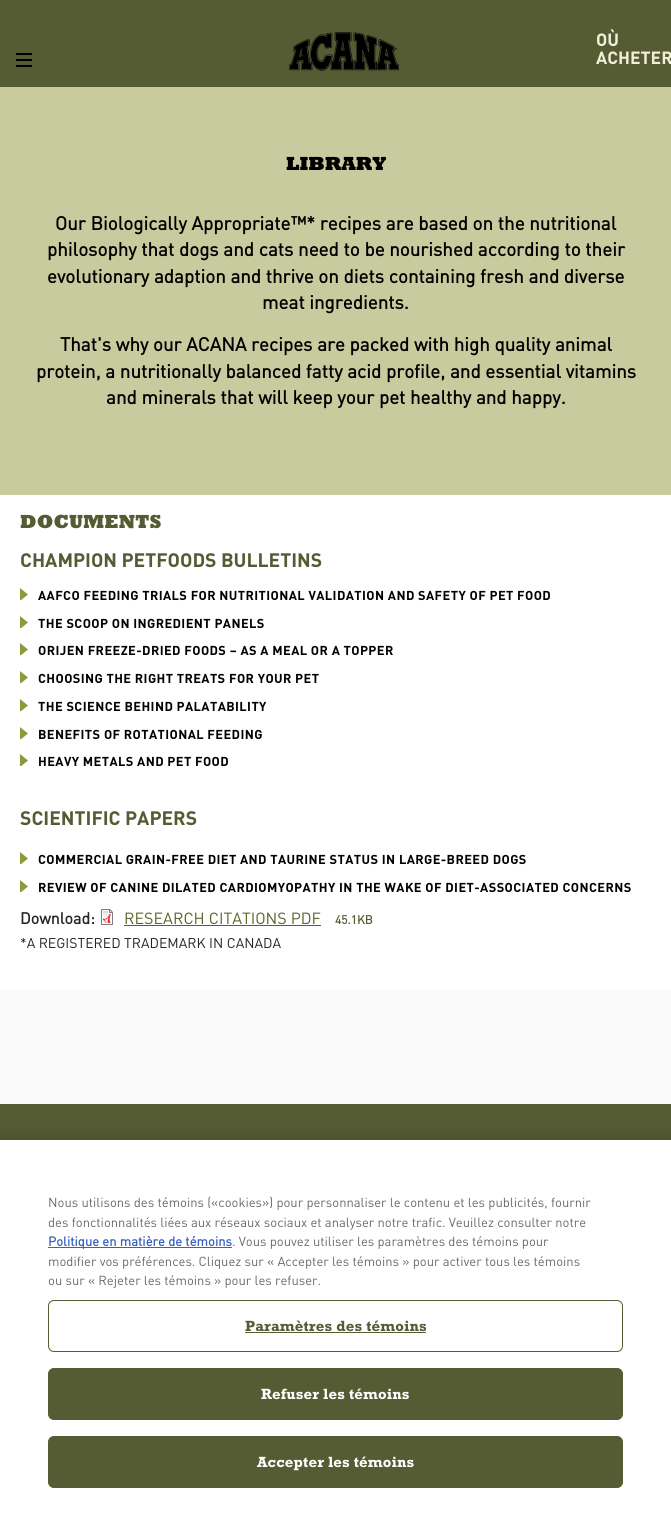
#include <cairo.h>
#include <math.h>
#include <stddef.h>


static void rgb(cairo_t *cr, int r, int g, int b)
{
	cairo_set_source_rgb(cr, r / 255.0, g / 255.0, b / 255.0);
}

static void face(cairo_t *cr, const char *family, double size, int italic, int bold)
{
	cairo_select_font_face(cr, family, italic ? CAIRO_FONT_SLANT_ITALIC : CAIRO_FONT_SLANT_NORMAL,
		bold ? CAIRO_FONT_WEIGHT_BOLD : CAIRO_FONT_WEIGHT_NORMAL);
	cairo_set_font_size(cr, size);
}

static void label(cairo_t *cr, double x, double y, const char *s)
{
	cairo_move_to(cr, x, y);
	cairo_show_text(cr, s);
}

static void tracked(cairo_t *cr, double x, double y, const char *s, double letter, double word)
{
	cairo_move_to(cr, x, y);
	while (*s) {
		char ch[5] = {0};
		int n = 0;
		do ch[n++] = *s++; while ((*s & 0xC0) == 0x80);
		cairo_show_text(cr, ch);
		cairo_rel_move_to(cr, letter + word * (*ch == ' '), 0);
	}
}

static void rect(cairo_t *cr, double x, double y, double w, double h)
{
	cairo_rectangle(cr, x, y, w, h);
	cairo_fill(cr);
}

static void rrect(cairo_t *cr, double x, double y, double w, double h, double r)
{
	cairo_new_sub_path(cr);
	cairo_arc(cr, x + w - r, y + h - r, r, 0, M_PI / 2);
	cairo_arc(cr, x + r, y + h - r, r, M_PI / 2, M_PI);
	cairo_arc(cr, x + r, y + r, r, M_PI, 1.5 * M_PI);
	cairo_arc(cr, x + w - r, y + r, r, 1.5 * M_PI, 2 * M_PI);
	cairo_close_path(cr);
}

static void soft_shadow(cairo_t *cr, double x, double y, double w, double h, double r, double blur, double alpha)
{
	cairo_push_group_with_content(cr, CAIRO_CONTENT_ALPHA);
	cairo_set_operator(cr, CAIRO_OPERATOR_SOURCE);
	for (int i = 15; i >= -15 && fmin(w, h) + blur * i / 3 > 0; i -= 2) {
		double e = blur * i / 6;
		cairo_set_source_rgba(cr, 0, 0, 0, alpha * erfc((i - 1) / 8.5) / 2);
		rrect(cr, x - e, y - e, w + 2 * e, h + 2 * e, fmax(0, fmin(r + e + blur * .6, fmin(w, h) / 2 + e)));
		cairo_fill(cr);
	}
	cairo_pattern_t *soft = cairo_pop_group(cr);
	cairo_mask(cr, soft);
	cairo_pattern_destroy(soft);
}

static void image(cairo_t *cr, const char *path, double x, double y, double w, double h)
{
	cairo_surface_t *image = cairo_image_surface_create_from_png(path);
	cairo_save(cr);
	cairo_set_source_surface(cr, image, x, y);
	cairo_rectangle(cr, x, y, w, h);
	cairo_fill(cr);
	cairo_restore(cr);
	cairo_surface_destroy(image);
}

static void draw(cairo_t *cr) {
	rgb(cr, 249, 249, 249);
	cairo_paint(cr);
	rgb(cr, 85, 91, 51);
	rect(cr, 0, 0, 671, 87);
	image(cr, "image0.png", 16, 53, 16, 14);
	image(cr, "image1.png", 289, 32, 111, 39);
	face(cr, "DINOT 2", 17.5, 0, 1);
	rgb(cr, 241, 239, 217);
	label(cr, 596, 46, "OÙ");
	label(cr, 596, 64, "ACHETER");
	rgb(cr, 255, 255, 255);
	rect(cr, 0, 495, 671, 495);
	rgb(cr, 199, 203, 157);
	rect(cr, 0, 87, 671, 408);
	face(cr, "Rockwell ExtraBold", 19.25, 0, 0);
	rgb(cr, 0, 0, 0);
	label(cr, 286, 170, "LIBRARY");
	face(cr, "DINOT", 18.8, 0, 1);
	label(cr, 55, 230, "Our Biologically Appropriate™* recipes are based on the nutritional");
	label(cr, 47, 256, "philosophy that dogs and cats need to be nourished according to their");
	label(cr, 47, 283, "evolutionary adaption and thrive on diets containing fresh and diverse");
	label(cr, 262, 309, "meat ingredients.");
	label(cr, 60, 351, "That's why our ACANA recipes are packed with high quality animal");
	label(cr, 36, 378, "protein, a nutritionally balanced fatty acid profile, and essential vitamins");
	label(cr, 106, 404, "and minerals that will keep your pet healthy and happy.");
	face(cr, "Rockwell ExtraBold", 19.25, 0, 0);
	rgb(cr, 85, 91, 51);
	label(cr, 20, 528, "DOCUMENTS");
	face(cr, "DINOT 2", 19.25, 0, 1);
	label(cr, 20, 567, "CHAMPION PETFOODS BULLETINS");
	image(cr, "image2.png", 20, 588, 8, 12);
	face(cr, "DINOT 2", 12.8, 0, 1);
	rgb(cr, 0, 0, 0);
	tracked(cr, 38, 600, "AAFCO FEEDING TRIALS FOR NUTRITIONAL VALIDATION AND SAFETY OF PET FOOD", 0.4, 0);
	image(cr, "image2.png", 20, 616, 8, 12);
	tracked(cr, 38, 628, "THE SCOOP ON INGREDIENT PANELS", 0.4, 0);
	image(cr, "image2.png", 20, 643, 8, 12);
	tracked(cr, 38, 655, "ORIJEN FREEZE-DRIED FOODS – AS A MEAL OR A TOPPER", 0.4, 0);
	image(cr, "image2.png", 20, 671, 8, 12);
	tracked(cr, 38, 683, "CHOOSING THE RIGHT TREATS FOR YOUR PET", 0.4, 0);
	image(cr, "image2.png", 20, 699, 8, 12);
	tracked(cr, 38, 711, "THE SCIENCE BEHIND PALATABILITY", 0.4, 0);
	image(cr, "image2.png", 20, 727, 8, 12);
	tracked(cr, 38, 739, "BENEFITS OF ROTATIONAL FEEDING", 0.4, 0);
	image(cr, "image2.png", 20, 754, 8, 12);
	tracked(cr, 38, 766, "HEAVY METALS AND PET FOOD", 0.4, 0);
	face(cr, "DINOT 2", 19.25, 0, 1);
	rgb(cr, 85, 91, 51);
	label(cr, 20, 825, "SCIENTIFIC PAPERS");
	image(cr, "image2.png", 20, 852, 8, 12);
	face(cr, "DINOT 2", 12.8, 0, 1);
	rgb(cr, 0, 0, 0);
	tracked(cr, 38, 864, "COMMERCIAL GRAIN-FREE DIET AND TAURINE STATUS IN LARGE-BREED DOGS", 0.4, 0);
	image(cr, "image2.png", 20, 880, 8, 12);
	tracked(cr, 38, 892, "REVIEW OF CANINE DILATED CARDIOMYOPATHY IN THE WAKE OF DIET-ASSOCIATED CONCERNS", 0.4, 0);
	face(cr, "DINOT", 16, 0, 1);
	rgb(cr, 33, 37, 41);
	label(cr, 20, 924, "Download:");
	image(cr, "image3.png", 101, 909, 12, 16);
	face(cr, "DINOT", 16, 0, 0);
	rgb(cr, 92, 98, 40);
	label(cr, 124, 924, "RESEARCH CITATIONS PDF");
	rect(cr, 124, 925, 197, 1);
	face(cr, "DINOT", 12, 0, 1);
	rgb(cr, 85, 91, 51);
	label(cr, 335, 924, "45.1KB");
	face(cr, "DINOT", 14, 0, 0);
	rgb(cr, 33, 37, 41);
	label(cr, 20, 948, "*A REGISTERED TRADEMARK IN CANADA");
	rgb(cr, 85, 91, 51);
	rect(cr, 0, 1104, 671, 36);
	rgb(cr, 0, 0, 0);
	soft_shadow(cr, 0, 1140, 671, 396, 0, 9, 0.2);
	rgb(cr, 255, 255, 255);
	rect(cr, 0, 1140, 671, 396);
	face(cr, "DINOT", 13, 0, 0);
	rgb(cr, 105, 105, 105);
	label(cr, 48, 1207, "Nous utilisons des témoins («cookies») pour personnaliser le contenu et les publicités, fournir");
	label(cr, 48, 1227, "des fonctionnalités liées aux réseaux sociaux et analyser notre trafic. Veuillez consulter notre");
	rgb(cr, 56, 96, 190);
	rect(cr, 48, 1247, 184, 1);
	face(cr, "DINOT", 13, 0, 1);
	label(cr, 48, 1246, "Politique en matière de témoins");
	face(cr, "DINOT", 13, 0, 0);
	rgb(cr, 105, 105, 105);
	label(cr, 232, 1246, ". Vous pouvez utiliser les paramètres des témoins pour");
	label(cr, 48, 1266, "modifier vos préférences. Cliquez sur « Accepter les témoins » pour activer tous les témoins");
	label(cr, 48, 1285, "ou sur « Rejeter les témoins » pour les refuser.");
	rrect(cr, 48.5, 1300.5, 574, 51, 5.5);
	rgb(cr, 85, 91, 51);
	cairo_set_line_width(cr, 1);
	cairo_stroke(cr);
	face(cr, "Rockwell", 15, 0, 1);
	tracked(cr, 245, 1331, "Paramètres des témoins", 0.15, 0);
	rect(cr, 245, 1332, 181, 1);
	rrect(cr, 48.5, 1368.5, 574, 51, 5.5);
	cairo_fill_preserve(cr);
	cairo_stroke(cr);
	rgb(cr, 255, 255, 255);
	tracked(cr, 261, 1399, "Refuser les témoins", 0.15, 0);
	rgb(cr, 85, 91, 51);
	rrect(cr, 48.5, 1436.5, 574, 51, 5.5);
	cairo_fill_preserve(cr);
	cairo_stroke(cr);
	rgb(cr, 255, 255, 255);
	tracked(cr, 257, 1467, "Accepter les témoins", 0.15, 0);
}

int main(void) {
	cairo_surface_t *surface = cairo_image_surface_create(CAIRO_FORMAT_RGB24, 671, 1536);
	cairo_t *cr = cairo_create(surface);
	cairo_font_options_t *options = cairo_font_options_create();
	cairo_font_options_set_hint_metrics(options, CAIRO_HINT_METRICS_OFF);
	cairo_font_options_set_hint_style(options, CAIRO_HINT_STYLE_NONE);
	cairo_set_font_options(cr, options);
	cairo_set_miter_limit(cr, 4);
	draw(cr);
	cairo_surface_write_to_png(surface, "render.png");
	cairo_font_options_destroy(options);
	cairo_destroy(cr);
	cairo_surface_destroy(surface);
	return 0;
}
